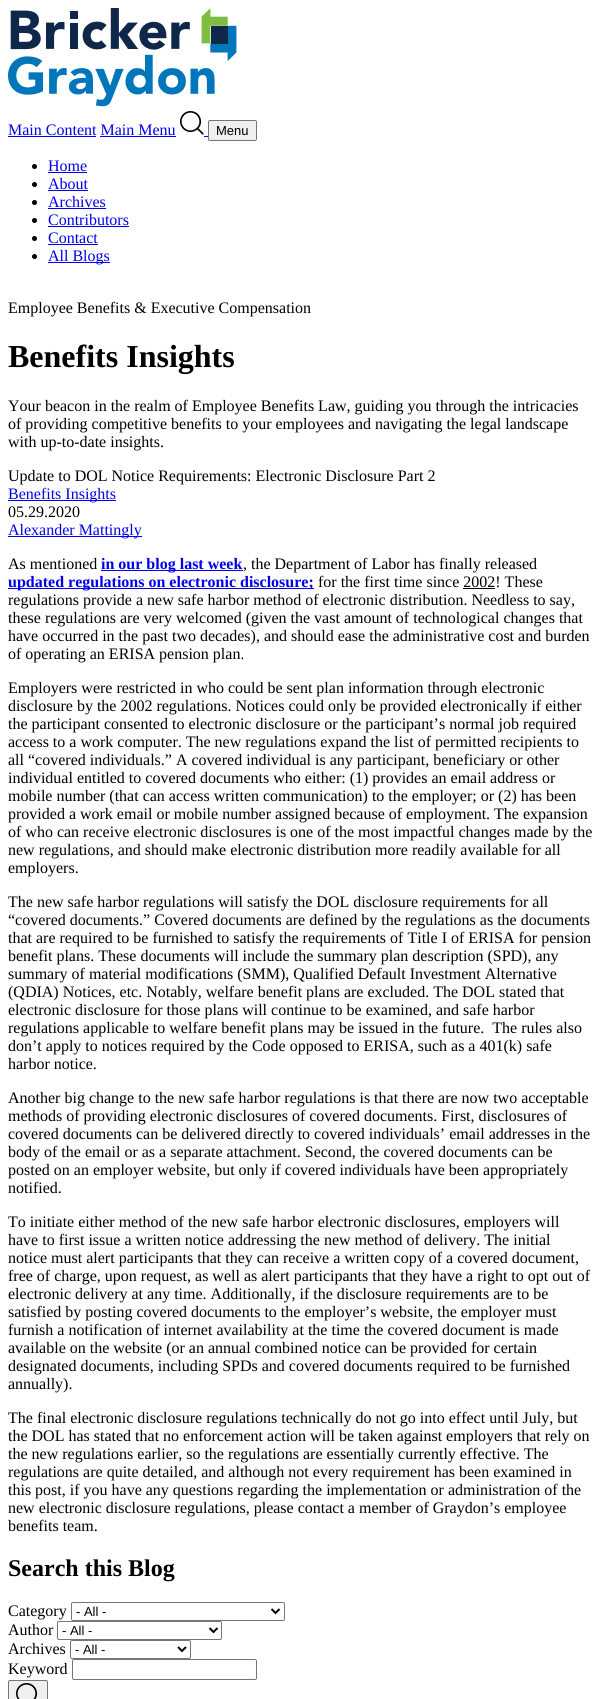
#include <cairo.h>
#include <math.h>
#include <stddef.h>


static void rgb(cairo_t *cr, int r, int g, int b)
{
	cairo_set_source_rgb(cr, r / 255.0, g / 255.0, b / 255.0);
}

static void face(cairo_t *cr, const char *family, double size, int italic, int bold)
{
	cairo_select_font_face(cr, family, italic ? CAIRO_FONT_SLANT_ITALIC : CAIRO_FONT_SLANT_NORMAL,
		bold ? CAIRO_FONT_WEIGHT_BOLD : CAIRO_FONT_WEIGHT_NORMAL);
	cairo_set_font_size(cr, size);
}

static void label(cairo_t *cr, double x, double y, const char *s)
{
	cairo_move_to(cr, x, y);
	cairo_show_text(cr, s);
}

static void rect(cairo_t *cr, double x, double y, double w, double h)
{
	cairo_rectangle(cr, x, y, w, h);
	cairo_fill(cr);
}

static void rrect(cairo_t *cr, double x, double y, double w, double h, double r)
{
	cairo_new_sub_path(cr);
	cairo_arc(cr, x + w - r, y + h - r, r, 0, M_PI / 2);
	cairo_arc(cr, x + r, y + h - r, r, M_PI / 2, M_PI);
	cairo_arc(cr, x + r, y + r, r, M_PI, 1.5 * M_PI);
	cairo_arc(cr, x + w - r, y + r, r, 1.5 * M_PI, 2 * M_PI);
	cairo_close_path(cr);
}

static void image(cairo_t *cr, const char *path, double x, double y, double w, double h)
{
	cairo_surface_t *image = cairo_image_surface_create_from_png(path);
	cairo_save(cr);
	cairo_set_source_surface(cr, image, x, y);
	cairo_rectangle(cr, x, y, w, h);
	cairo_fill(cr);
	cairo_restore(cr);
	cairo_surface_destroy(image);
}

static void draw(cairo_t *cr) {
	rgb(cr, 255, 255, 255);
	cairo_paint(cr);
	image(cr, "image0.png", 8, 8, 229, 99);
	face(cr, "Liberation Serif", 16, 0, 0);
	rgb(cr, 0, 0, 238);
	label(cr, 8, 135, "Main Content Main Menu");
	rect(cr, 8, 136, 88, 1);
	image(cr, "image1.png", 180, 111, 24, 24);
	rgb(cr, 239, 239, 239);
	rrect(cr, 208.5, 120.5, 48, 20, 1.5);
	cairo_fill_preserve(cr);
	rgb(cr, 118, 118, 118);
	cairo_set_line_width(cr, 1);
	cairo_stroke(cr);
	face(cr, "Liberation Sans", 13, 0, 0);
	rgb(cr, 0, 0, 0);
	label(cr, 216, 135, "Menu");
	rgb(cr, 0, 0, 238);
	rect(cr, 100, 136, 76, 1);
	rect(cr, 204, 136, 4, 1);
	rgb(cr, 0, 0, 0);
	cairo_new_path(cr);
	cairo_arc(cr, 34.5, 166.5, 2.5, 0, 2 * M_PI);
	cairo_fill(cr);
	face(cr, "Liberation Serif", 16, 0, 0);
	rgb(cr, 0, 0, 238);
	label(cr, 48, 171, "Home");
	rect(cr, 48, 172, 39, 1);
	rgb(cr, 0, 0, 0);
	cairo_new_path(cr);
	cairo_arc(cr, 34.5, 184.5, 2.5, 0, 2 * M_PI);
	cairo_fill(cr);
	rgb(cr, 0, 0, 238);
	label(cr, 48, 189, "About");
	rect(cr, 48, 190, 40, 1);
	rgb(cr, 0, 0, 0);
	cairo_new_path(cr);
	cairo_arc(cr, 34.5, 202.5, 2.5, 0, 2 * M_PI);
	cairo_fill(cr);
	rgb(cr, 0, 0, 238);
	label(cr, 48, 207, "Archives");
	rect(cr, 48, 208, 58, 1);
	rgb(cr, 0, 0, 0);
	cairo_new_path(cr);
	cairo_arc(cr, 34.5, 220.5, 2.5, 0, 2 * M_PI);
	cairo_fill(cr);
	rgb(cr, 0, 0, 238);
	label(cr, 48, 225, "Contributors");
	rect(cr, 48, 226, 81, 1);
	rgb(cr, 0, 0, 0);
	cairo_new_path(cr);
	cairo_arc(cr, 34.5, 238.5, 2.5, 0, 2 * M_PI);
	cairo_fill(cr);
	rgb(cr, 0, 0, 238);
	label(cr, 48, 243, "Contact");
	rect(cr, 48, 244, 50, 1);
	rgb(cr, 0, 0, 0);
	cairo_new_path(cr);
	cairo_arc(cr, 34.5, 256.5, 2.5, 0, 2 * M_PI);
	cairo_fill(cr);
	rgb(cr, 0, 0, 238);
	rect(cr, 48, 262, 62, 1);
	label(cr, 48, 261, "All Blogs");
	rgb(cr, 0, 0, 0);
	label(cr, 8, 313, "Employee Benefits & Executive Compensation");
	face(cr, "Liberation Serif", 32, 0, 1);
	label(cr, 8, 367, "Benefits Insights");
	face(cr, "Liberation Serif", 16, 0, 0);
	label(cr, 8, 411, "Your beacon in the realm of Employee Benefits Law, guiding you through the intricacies");
	label(cr, 8, 429, "of providing competitive benefits to your employees and navigating the legal landscape");
	label(cr, 8, 447, "with up-to-date insights.");
	label(cr, 8, 481, "Update to DOL Notice Requirements: Electronic Disclosure Part 2");
	rgb(cr, 0, 0, 238);
	rect(cr, 8, 500, 108, 1);
	label(cr, 8, 499, "Benefits Insights");
	rgb(cr, 0, 0, 0);
	label(cr, 8, 517, "05.29.2020");
	rgb(cr, 0, 0, 238);
	rect(cr, 8, 536, 134, 1);
	label(cr, 8, 535, "Alexander Mattingly");
	rgb(cr, 0, 0, 0);
	label(cr, 8, 569, "As mentioned");
	rgb(cr, 0, 0, 238);
	rect(cr, 101, 570, 142, 1);
	face(cr, "Liberation Serif", 16, 0, 1);
	label(cr, 101, 569, "in our blog last week");
	face(cr, "Liberation Serif", 16, 0, 0);
	rgb(cr, 0, 0, 0);
	label(cr, 243, 569, ", the Department of Labor has finally released");
	rgb(cr, 0, 0, 238);
	rect(cr, 8, 588, 306, 1);
	face(cr, "Liberation Serif", 16, 0, 1);
	label(cr, 8, 587, "updated regulations on electronic disclosure;");
	face(cr, "Liberation Serif", 16, 0, 0);
	rgb(cr, 0, 0, 0);
	label(cr, 318, 587, "for the first time since 2002! These");
	rect(cr, 463, 588, 32, 1);
	label(cr, 8, 605, "regulations provide a new safe harbor method of electronic distribution. Needless to say,");
	label(cr, 8, 623, "these regulations are very welcomed (given the vast amount of technological changes that");
	label(cr, 8, 641, "have occurred in the past two decades), and should ease the administrative cost and burden");
	label(cr, 8, 659, "of operating an ERISA pension plan.");
	label(cr, 8, 693, "Employers were restricted in who could be sent plan information through electronic");
	label(cr, 8, 711, "disclosure by the 2002 regulations. Notices could only be provided electronically if either");
	label(cr, 8, 729, "the participant consented to electronic disclosure or the participant’s normal job required");
	label(cr, 8, 747, "access to a work computer. The new regulations expand the list of permitted recipients to");
	label(cr, 8, 765, "all “covered individuals.” A covered individual is any participant, beneficiary or other");
	label(cr, 8, 783, "individual entitled to covered documents who either: (1) provides an email address or");
	label(cr, 8, 801, "mobile number (that can access written communication) to the employer; or (2) has been");
	label(cr, 8, 819, "provided a work email or mobile number assigned because of employment. The expansion");
	label(cr, 8, 837, "of who can receive electronic disclosures is one of the most impactful changes made by the");
	label(cr, 8, 855, "new regulations, and should make electronic distribution more readily available for all");
	label(cr, 8, 873, "employers.");
	label(cr, 8, 907, "The new safe harbor regulations will satisfy the DOL disclosure requirements for all");
	label(cr, 8, 925, "“covered documents.” Covered documents are defined by the regulations as the documents");
	label(cr, 8, 943, "that are required to be furnished to satisfy the requirements of Title I of ERISA for pension");
	label(cr, 8, 961, "benefit plans. These documents will include the summary plan description (SPD), any");
	label(cr, 8, 979, "summary of material modifications (SMM), Qualified Default Investment Alternative");
	label(cr, 8, 997, "(QDIA) Notices, etc. Notably, welfare benefit plans are excluded. The DOL stated that");
	label(cr, 8, 1015, "electronic disclosure for those plans will continue to be examined, and safe harbor");
	label(cr, 8, 1033, "regulations applicable to welfare benefit plans may be issued in the future.  The rules also");
	label(cr, 8, 1051, "don’t apply to notices required by the Code opposed to ERISA, such as a 401(k) safe");
	label(cr, 8, 1069, "harbor notice.");
	label(cr, 8, 1103, "Another big change to the new safe harbor regulations is that there are now two acceptable");
	label(cr, 8, 1121, "methods of providing electronic disclosures of covered documents. First, disclosures of");
	label(cr, 8, 1139, "covered documents can be delivered directly to covered individuals’ email addresses in the");
	label(cr, 8, 1157, "body of the email or as a separate attachment. Second, the covered documents can be");
	label(cr, 8, 1175, "posted on an employer website, but only if covered individuals have been appropriately");
	label(cr, 8, 1193, "notified.");
	label(cr, 8, 1227, "To initiate either method of the new safe harbor electronic disclosures, employers will");
	label(cr, 8, 1245, "have to first issue a written notice addressing the new method of delivery. The initial");
	label(cr, 8, 1263, "notice must alert participants that they can receive a written copy of a covered document,");
	label(cr, 8, 1281, "free of charge, upon request, as well as alert participants that they have a right to opt out of");
	label(cr, 8, 1299, "electronic delivery at any time. Additionally, if the disclosure requirements are to be");
	label(cr, 8, 1317, "satisfied by posting covered documents to the employer’s website, the employer must");
	label(cr, 8, 1335, "furnish a notification of internet availability at the time the covered document is made");
	label(cr, 8, 1353, "available on the website (or an annual combined notice can be provided for certain");
	label(cr, 8, 1371, "designated documents, including SPDs and covered documents required to be furnished");
	label(cr, 8, 1389, "annually).");
	label(cr, 8, 1423, "The final electronic disclosure regulations technically do not go into effect until July, but");
	label(cr, 8, 1441, "the DOL has stated that no enforcement action will be taken against employers that rely on");
	label(cr, 8, 1459, "the new regulations earlier, so the regulations are essentially currently effective. The");
	label(cr, 8, 1477, "regulations are quite detailed, and although not every requirement has been examined in");
	label(cr, 8, 1495, "this post, if you have any questions regarding the implementation or administration of the");
	label(cr, 8, 1513, "new electronic disclosure regulations, please contact a member of Graydon’s employee");
	label(cr, 8, 1531, "benefits team.");
	face(cr, "Liberation Serif", 24, 0, 1);
	label(cr, 8, 1576, "Search this Blog");
	face(cr, "Liberation Serif", 16, 0, 0);
	label(cr, 8, 1616, "Category");
	rrect(cr, 71.5, 1602.5, 213, 18, 1.5);
	rgb(cr, 118, 118, 118);
	cairo_stroke(cr);
	cairo_new_path(cr);
	cairo_move_to(cr, 271.5, 1609);
	cairo_line_to(cr, 275.5, 1613);
	cairo_line_to(cr, 279.5, 1609);
	rgb(cr, 0, 0, 0);
	cairo_set_line_width(cr, 2);
	cairo_stroke(cr);
	face(cr, "Liberation Sans", 13, 0, 0);
	label(cr, 76, 1616, "- All -");
	face(cr, "Liberation Serif", 16, 0, 0);
	label(cr, 8, 1635, "Author");
	rrect(cr, 57.5, 1621.5, 164, 18, 1.5);
	rgb(cr, 118, 118, 118);
	cairo_set_line_width(cr, 1);
	cairo_stroke(cr);
	cairo_new_path(cr);
	cairo_move_to(cr, 209.5, 1628);
	cairo_line_to(cr, 213.5, 1632);
	cairo_line_to(cr, 217.5, 1628);
	rgb(cr, 0, 0, 0);
	cairo_set_line_width(cr, 2);
	cairo_stroke(cr);
	face(cr, "Liberation Sans", 13, 0, 0);
	label(cr, 62, 1635, "- All -");
	face(cr, "Liberation Serif", 16, 0, 0);
	label(cr, 8, 1654, "Archives");
	rrect(cr, 70.5, 1640.5, 120, 18, 1.5);
	rgb(cr, 118, 118, 118);
	cairo_set_line_width(cr, 1);
	cairo_stroke(cr);
	cairo_new_path(cr);
	cairo_move_to(cr, 178, 1647);
	cairo_line_to(cr, 182, 1651);
	cairo_line_to(cr, 186, 1647);
	rgb(cr, 0, 0, 0);
	cairo_set_line_width(cr, 2);
	cairo_stroke(cr);
	face(cr, "Liberation Sans", 13, 0, 0);
	label(cr, 75, 1654, "- All -");
	face(cr, "Liberation Serif", 16, 0, 0);
	label(cr, 8, 1674, "Keyword");
	rrect(cr, 72.5, 1659.5, 184, 20, 1.5);
	rgb(cr, 118, 118, 118);
	cairo_set_line_width(cr, 1);
	cairo_stroke(cr);
	rgb(cr, 239, 239, 239);
	rrect(cr, 8.5, 1680.5, 39, 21, 1.5);
	cairo_fill_preserve(cr);
	rgb(cr, 118, 118, 118);
	cairo_stroke(cr);
	image(cr, "image2.png", 16, 1683, 22, 16);
}

int main(void) {
	cairo_surface_t *surface = cairo_image_surface_create(CAIRO_FORMAT_RGB24, 601, 1699);
	cairo_t *cr = cairo_create(surface);
	cairo_font_options_t *options = cairo_font_options_create();
	cairo_font_options_set_hint_metrics(options, CAIRO_HINT_METRICS_OFF);
	cairo_font_options_set_hint_style(options, CAIRO_HINT_STYLE_NONE);
	cairo_set_font_options(cr, options);
	cairo_set_miter_limit(cr, 4);
	draw(cr);
	cairo_surface_write_to_png(surface, "render.png");
	cairo_font_options_destroy(options);
	cairo_destroy(cr);
	cairo_surface_destroy(surface);
	return 0;
}
